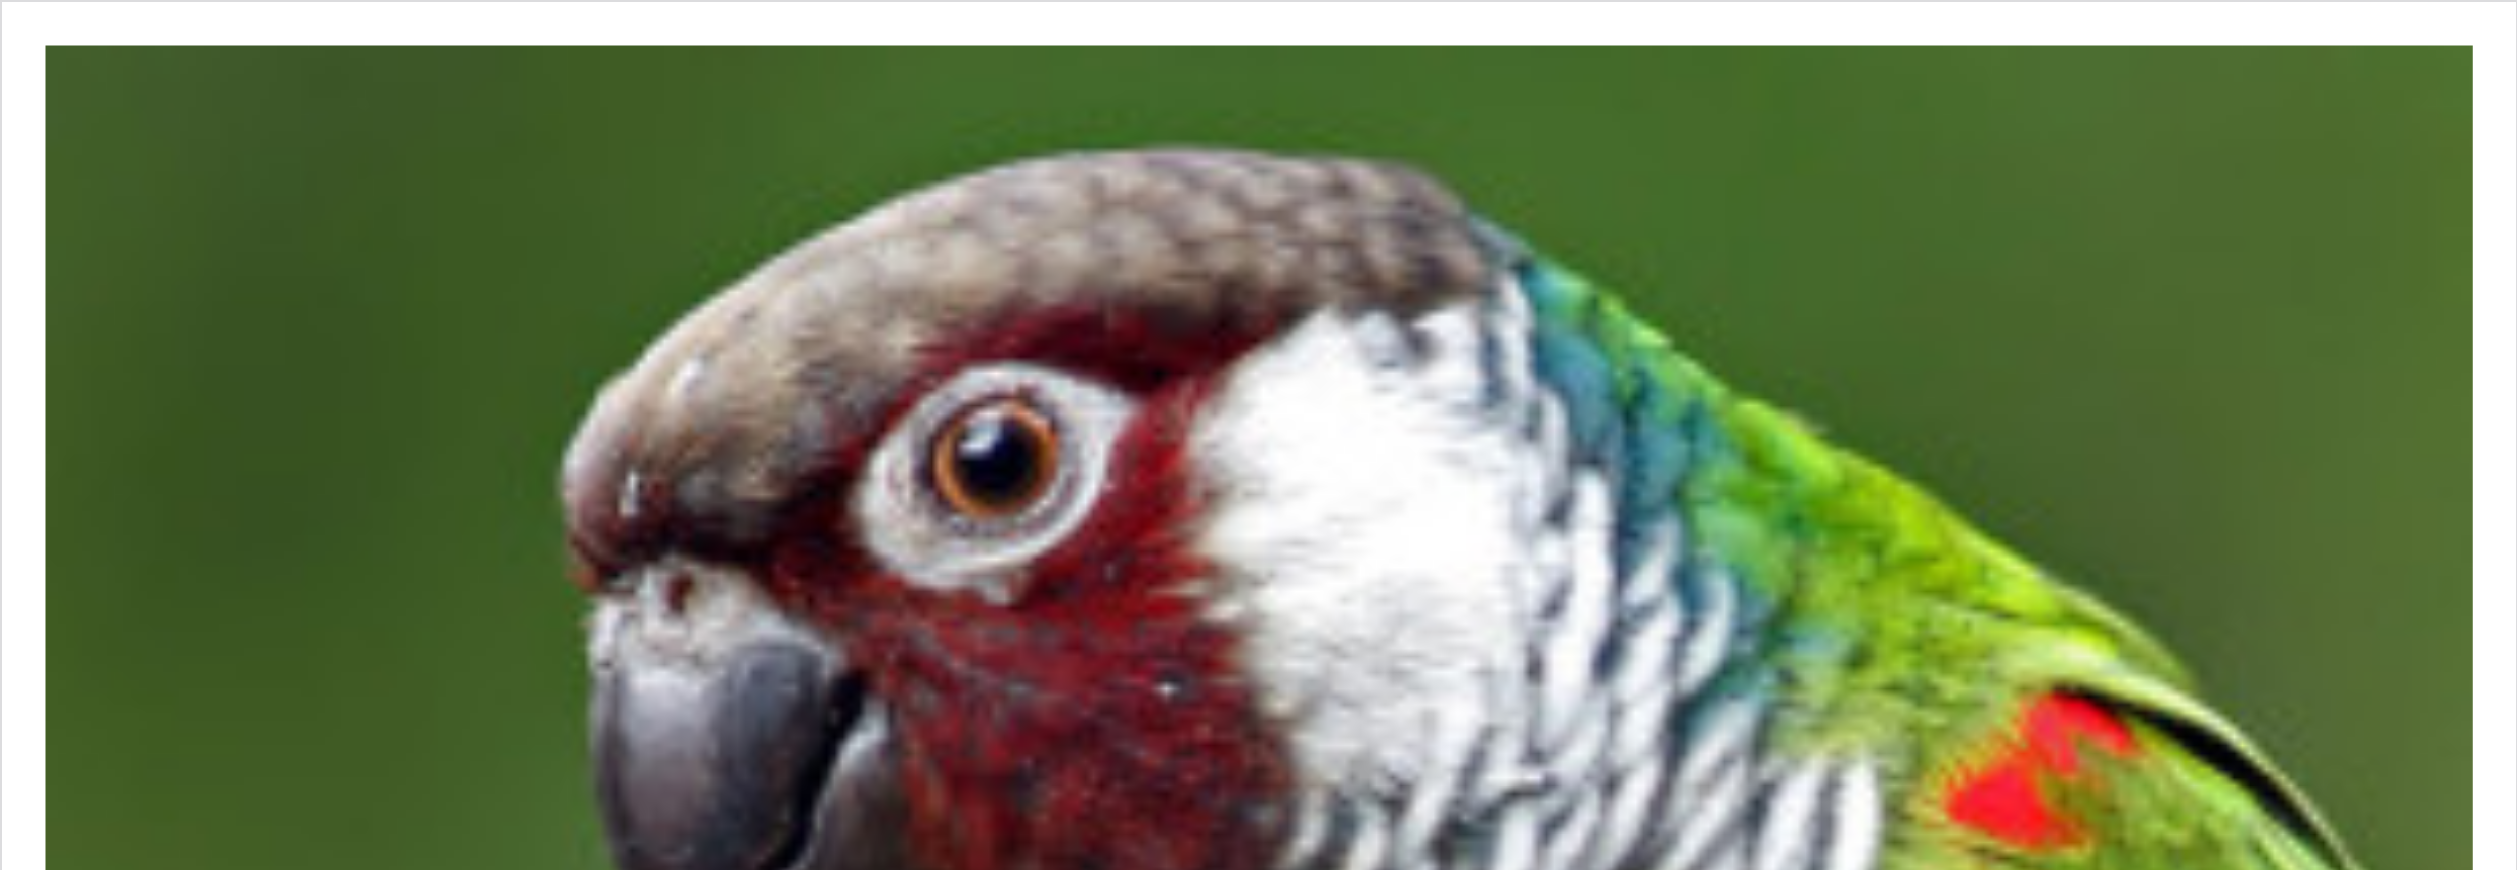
#include <cairo.h>
#include <math.h>
#include <stddef.h>


static void rgb(cairo_t *cr, int r, int g, int b)
{
	cairo_set_source_rgb(cr, r / 255.0, g / 255.0, b / 255.0);
}

static void image(cairo_t *cr, const char *path, double x, double y, double w, double h)
{
	cairo_surface_t *image = cairo_image_surface_create_from_png(path);
	cairo_save(cr);
	cairo_set_source_surface(cr, image, x, y);
	cairo_rectangle(cr, x, y, w, h);
	cairo_fill(cr);
	cairo_restore(cr);
	cairo_surface_destroy(image);
}

static void draw(cairo_t *cr) {
	rgb(cr, 255, 255, 255);
	cairo_paint(cr);
	cairo_rectangle(cr, 1, 1, 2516, 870);
	rgb(cr, 220, 220, 222);
	cairo_stroke(cr);
	image(cr, "image0.png", 45, 45, 2428, 825);
}

int main(void) {
	cairo_surface_t *surface = cairo_image_surface_create(CAIRO_FORMAT_RGB24, 2517, 870);
	cairo_t *cr = cairo_create(surface);
	cairo_font_options_t *options = cairo_font_options_create();
	cairo_font_options_set_hint_metrics(options, CAIRO_HINT_METRICS_OFF);
	cairo_font_options_set_hint_style(options, CAIRO_HINT_STYLE_NONE);
	cairo_set_font_options(cr, options);
	cairo_set_miter_limit(cr, 4);
	draw(cr);
	cairo_surface_write_to_png(surface, "render.png");
	cairo_font_options_destroy(options);
	cairo_destroy(cr);
	cairo_surface_destroy(surface);
	return 0;
}
